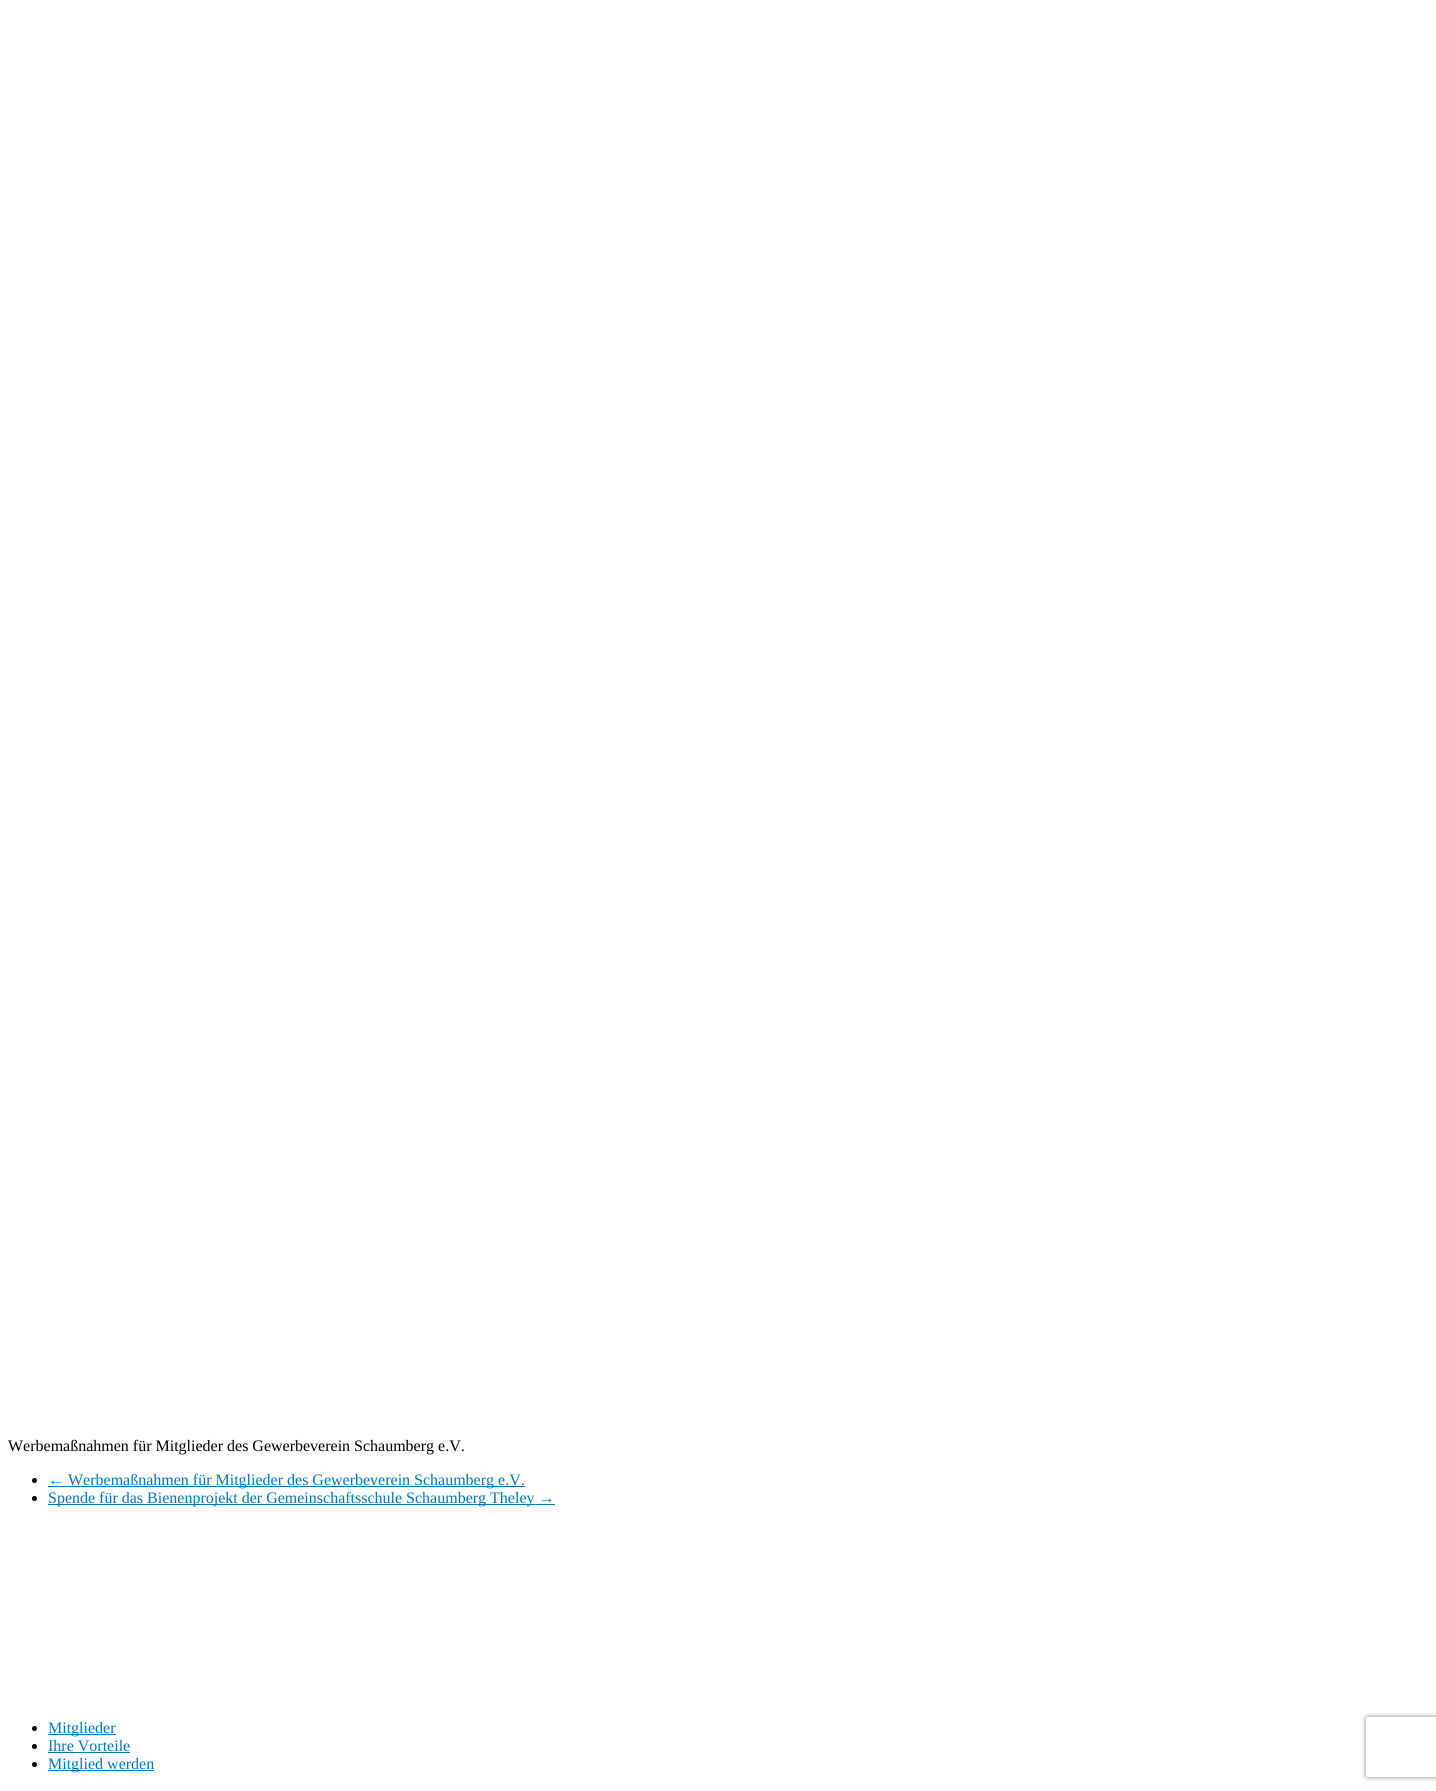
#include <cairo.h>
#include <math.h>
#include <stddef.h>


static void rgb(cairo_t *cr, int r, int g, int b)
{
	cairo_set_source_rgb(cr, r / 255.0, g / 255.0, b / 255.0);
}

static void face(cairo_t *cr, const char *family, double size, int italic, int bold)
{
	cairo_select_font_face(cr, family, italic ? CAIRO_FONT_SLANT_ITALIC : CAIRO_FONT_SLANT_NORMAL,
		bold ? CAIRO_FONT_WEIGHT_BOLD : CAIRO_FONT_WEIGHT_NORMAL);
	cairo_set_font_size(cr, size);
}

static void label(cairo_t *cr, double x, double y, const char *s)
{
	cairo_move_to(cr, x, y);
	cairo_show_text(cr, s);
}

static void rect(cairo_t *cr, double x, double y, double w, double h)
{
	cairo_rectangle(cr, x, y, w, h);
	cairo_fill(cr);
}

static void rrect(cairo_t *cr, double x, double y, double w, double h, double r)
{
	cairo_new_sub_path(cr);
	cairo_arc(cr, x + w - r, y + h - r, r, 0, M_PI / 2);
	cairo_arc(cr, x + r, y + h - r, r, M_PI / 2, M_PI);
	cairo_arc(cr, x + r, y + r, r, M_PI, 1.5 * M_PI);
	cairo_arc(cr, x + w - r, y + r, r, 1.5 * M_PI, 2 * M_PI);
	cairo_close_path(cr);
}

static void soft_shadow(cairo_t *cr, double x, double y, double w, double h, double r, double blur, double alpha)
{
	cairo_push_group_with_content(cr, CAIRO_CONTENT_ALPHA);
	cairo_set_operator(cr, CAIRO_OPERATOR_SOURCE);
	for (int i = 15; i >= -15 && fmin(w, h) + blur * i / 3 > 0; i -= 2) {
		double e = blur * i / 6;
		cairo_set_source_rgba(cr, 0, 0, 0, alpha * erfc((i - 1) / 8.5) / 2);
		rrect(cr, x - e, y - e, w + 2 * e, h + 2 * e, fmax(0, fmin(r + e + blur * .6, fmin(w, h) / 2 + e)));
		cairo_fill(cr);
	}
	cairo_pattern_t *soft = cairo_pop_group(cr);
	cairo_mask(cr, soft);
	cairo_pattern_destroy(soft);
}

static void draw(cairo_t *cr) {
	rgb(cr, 255, 255, 255);
	cairo_paint(cr);
	face(cr, "Liberation Serif", 16, 0, 0);
	rgb(cr, 0, 0, 0);
	label(cr, 8, 1451, "Werbemaßnahmen für Mitglieder des Gewerbeverein Schaumberg e.V.");
	cairo_new_path(cr);
	cairo_arc(cr, 34.5, 1480.5, 2.5, 0, 2 * M_PI);
	cairo_fill(cr);
	rgb(cr, 2, 119, 189);
	rect(cr, 48, 1486, 477, 1);
	label(cr, 48, 1485, "← Werbemaßnahmen für Mitglieder des Gewerbeverein Schaumberg e.V.");
	rgb(cr, 0, 0, 0);
	cairo_new_path(cr);
	cairo_arc(cr, 34.5, 1498.5, 2.5, 0, 2 * M_PI);
	cairo_fill(cr);
	rgb(cr, 2, 119, 189);
	rect(cr, 48, 1504, 507, 1);
	label(cr, 48, 1503, "Spende für das Bienenprojekt der Gemeinschaftsschule Schaumberg Theley →");
	rgb(cr, 0, 0, 0);
	cairo_new_path(cr);
	cairo_arc(cr, 34.5, 1728.5, 2.5, 0, 2 * M_PI);
	cairo_fill(cr);
	rgb(cr, 2, 119, 189);
	rect(cr, 48, 1734, 68, 1);
	label(cr, 48, 1733, "Mitglieder");
	rgb(cr, 0, 0, 0);
	cairo_new_path(cr);
	cairo_arc(cr, 34.5, 1746.5, 2.5, 0, 2 * M_PI);
	cairo_fill(cr);
	rgb(cr, 2, 119, 189);
	label(cr, 48, 1751, "Ihre Vorteile");
	rect(cr, 48, 1752, 82, 1);
	rgb(cr, 0, 0, 0);
	cairo_new_path(cr);
	cairo_arc(cr, 34.5, 1764.5, 2.5, 0, 2 * M_PI);
	cairo_fill(cr);
	rgb(cr, 2, 119, 189);
	rect(cr, 48, 1770, 106, 1);
	label(cr, 48, 1769, "Mitglied werden");
	cairo_save(cr);
	cairo_set_fill_rule(cr, CAIRO_FILL_RULE_EVEN_ODD);
	cairo_new_path(cr);
	cairo_move_to(cr, 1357, 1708);
	cairo_line_to(cr, 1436, 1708);
	cairo_line_to(cr, 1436, 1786);
	cairo_line_to(cr, 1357, 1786);
	cairo_close_path(cr);
	cairo_move_to(cr, 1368, 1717);
	cairo_line_to(cr, 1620, 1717);
	cairo_curve_to(cr, 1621, 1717, 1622, 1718, 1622, 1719);
	cairo_line_to(cr, 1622, 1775);
	cairo_curve_to(cr, 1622, 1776, 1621, 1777, 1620, 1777);
	cairo_line_to(cr, 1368, 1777);
	cairo_curve_to(cr, 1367, 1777, 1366, 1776, 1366, 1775);
	cairo_line_to(cr, 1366, 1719);
	cairo_curve_to(cr, 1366, 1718, 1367, 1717, 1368, 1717);
	cairo_close_path(cr);
	cairo_clip(cr);
	rgb(cr, 128, 128, 128);
	soft_shadow(cr, 1366, 1717, 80, 60, 2, 2.5, 1);
	cairo_restore(cr);
}

int main(void) {
	cairo_surface_t *surface = cairo_image_surface_create(CAIRO_FORMAT_RGB24, 1436, 1791);
	cairo_t *cr = cairo_create(surface);
	cairo_font_options_t *options = cairo_font_options_create();
	cairo_font_options_set_hint_metrics(options, CAIRO_HINT_METRICS_OFF);
	cairo_font_options_set_hint_style(options, CAIRO_HINT_STYLE_NONE);
	cairo_set_font_options(cr, options);
	cairo_set_miter_limit(cr, 4);
	draw(cr);
	cairo_surface_write_to_png(surface, "render.png");
	cairo_font_options_destroy(options);
	cairo_destroy(cr);
	cairo_surface_destroy(surface);
	return 0;
}
